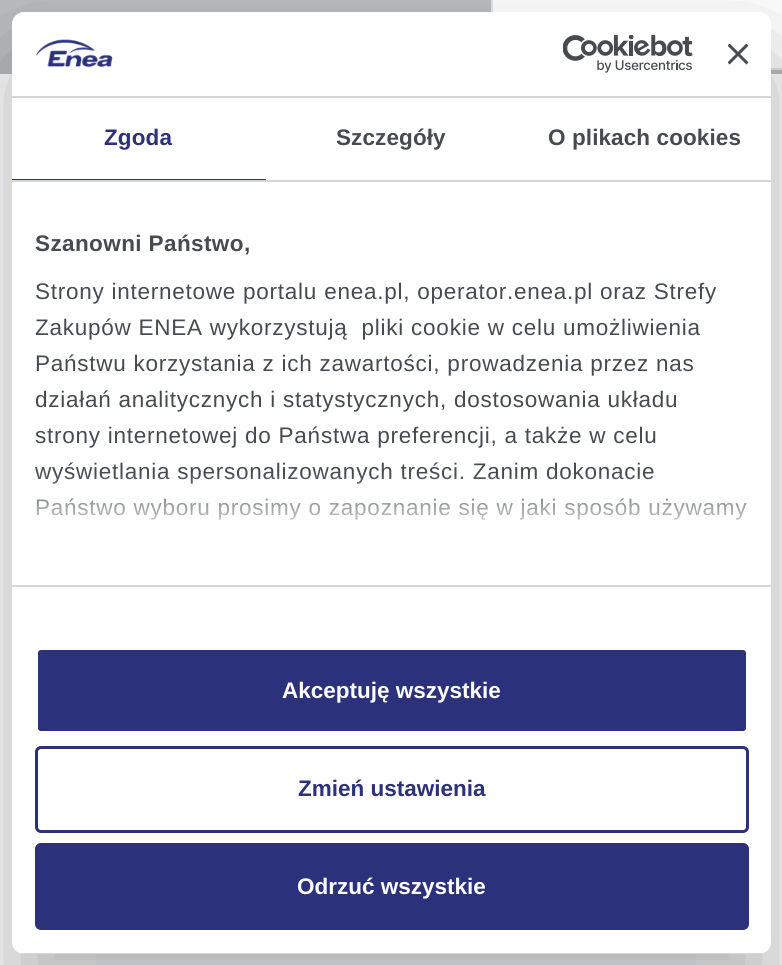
#include <cairo.h>
#include <math.h>
#include <stddef.h>


static void rgb(cairo_t *cr, int r, int g, int b)
{
	cairo_set_source_rgb(cr, r / 255.0, g / 255.0, b / 255.0);
}

static void face(cairo_t *cr, const char *family, double size, int italic, int bold)
{
	cairo_select_font_face(cr, family, italic ? CAIRO_FONT_SLANT_ITALIC : CAIRO_FONT_SLANT_NORMAL,
		bold ? CAIRO_FONT_WEIGHT_BOLD : CAIRO_FONT_WEIGHT_NORMAL);
	cairo_set_font_size(cr, size);
}

static void label(cairo_t *cr, double x, double y, const char *s)
{
	cairo_move_to(cr, x, y);
	cairo_show_text(cr, s);
}

static void tracked(cairo_t *cr, double x, double y, const char *s, double letter, double word)
{
	cairo_move_to(cr, x, y);
	while (*s) {
		char ch[5] = {0};
		int n = 0;
		do ch[n++] = *s++; while ((*s & 0xC0) == 0x80);
		cairo_show_text(cr, ch);
		cairo_rel_move_to(cr, letter + word * (*ch == ' '), 0);
	}
}

static void rect(cairo_t *cr, double x, double y, double w, double h)
{
	cairo_rectangle(cr, x, y, w, h);
	cairo_fill(cr);
}

static void rrect(cairo_t *cr, double x, double y, double w, double h, double r)
{
	cairo_new_sub_path(cr);
	cairo_arc(cr, x + w - r, y + h - r, r, 0, M_PI / 2);
	cairo_arc(cr, x + r, y + h - r, r, M_PI / 2, M_PI);
	cairo_arc(cr, x + r, y + r, r, M_PI, 1.5 * M_PI);
	cairo_arc(cr, x + w - r, y + r, r, 1.5 * M_PI, 2 * M_PI);
	cairo_close_path(cr);
}

static void soft_shadow(cairo_t *cr, double x, double y, double w, double h, double r, double blur, double alpha)
{
	cairo_push_group_with_content(cr, CAIRO_CONTENT_ALPHA);
	cairo_set_operator(cr, CAIRO_OPERATOR_SOURCE);
	for (int i = 15; i >= -15 && fmin(w, h) + blur * i / 3 > 0; i -= 2) {
		double e = blur * i / 6;
		cairo_set_source_rgba(cr, 0, 0, 0, alpha * erfc((i - 1) / 8.5) / 2);
		rrect(cr, x - e, y - e, w + 2 * e, h + 2 * e, fmax(0, fmin(r + e + blur * .6, fmin(w, h) / 2 + e)));
		cairo_fill(cr);
	}
	cairo_pattern_t *soft = cairo_pop_group(cr);
	cairo_mask(cr, soft);
	cairo_pattern_destroy(soft);
}

static void image(cairo_t *cr, const char *path, double x, double y, double w, double h)
{
	cairo_surface_t *image = cairo_image_surface_create_from_png(path);
	cairo_save(cr);
	cairo_set_source_surface(cr, image, x, y);
	cairo_rectangle(cr, x, y, w, h);
	cairo_fill(cr);
	cairo_restore(cr);
	cairo_surface_destroy(image);
}

static void draw(cairo_t *cr) {
	cairo_pattern_t *gradient;
	rgb(cr, 255, 255, 255);
	cairo_paint(cr);
	rgb(cr, 188, 189, 191);
	rect(cr, 0, 0, 782, 74);
	rgb(cr, 255, 255, 255);
	rect(cr, 493, 0, 289, 68);
	rgb(cr, 228, 229, 230);
	rect(cr, 771, 68, 11, 2);
	rect(cr, 491, 0, 2, 12);
	rgb(cr, 249, 250, 252);
	rect(cr, 96, 954, 600, 11);
	rgb(cr, 0, 0, 0);
	soft_shadow(cr, 12, 60, 759, 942, 12, 51, 0.3);
	rgb(cr, 255, 255, 255);
	rrect(cr, 12, 12, 759, 942, 12);
	cairo_fill(cr);
	rgb(cr, 214, 214, 214);
	rect(cr, 12, 96, 759, 2);
	image(cr, "image0.png", 36, 39, 77, 29);
	image(cr, "image1.png", 563, 35, 130, 38);
	image(cr, "image2.png", 728, 44, 21, 21);
	rect(cr, 12, 180, 759, 2);
	rgb(cr, 43, 49, 122);
	rect(cr, 12, 179, 254, 1);
	face(cr, "Liberation Sans", 22.5, 0, 1);
	tracked(cr, 104, 145, "Zgoda", 0.1, 0);
	rgb(cr, 70, 75, 79);
	tracked(cr, 336, 145, "Szczegóły", 0.1, 0);
	tracked(cr, 548, 145, "O plikach cookies", 0.1, 0);
	rgb(cr, 214, 214, 214);
	rect(cr, 12, 585, 759, 2);
	rgb(cr, 70, 75, 79);
	tracked(cr, 35, 251, "Szanowni Państwo,", 0.4, 0);
	face(cr, "Liberation Sans", 22.5, 0, 0);
	tracked(cr, 35, 299, "Strony internetowe portalu enea.pl, operator.enea.pl oraz Strefy", 0.75, 0);
	tracked(cr, 35, 335, "Zakupów ENEA wykorzystują  pliki cookie w celu umożliwienia", 0.75, 0);
	tracked(cr, 35, 371, "Państwu korzystania z ich zawartości, prowadzenia przez nas", 0.75, 0);
	tracked(cr, 35, 407, "działań analitycznych i statystycznych, dostosowania układu", 0.75, 0);
	tracked(cr, 35, 443, "strony internetowej do Państwa preferencji, a także w celu", 0.75, 0);
	tracked(cr, 35, 479, "wyświetlania spersonalizowanych treści. Zanim dokonacie", 0.75, 0);
	tracked(cr, 35, 515, "Państwo wyboru prosimy o zapoznanie się w jaki sposób używamy", 0.75, 0);
	gradient = cairo_pattern_create_linear(382, 585, 382, 473);
	cairo_pattern_add_color_stop_rgba(gradient, 0, 1, 1, 1, 1);
	cairo_pattern_add_color_stop_rgba(gradient, 0.5, 1, 1, 1, 0.8);
	cairo_pattern_add_color_stop_rgba(gradient, 1, 1, 1, 1, 0);
	cairo_set_source(cr, gradient);
	cairo_pattern_destroy(gradient);
	rect(cr, 36, 475, 710, 45);
	cairo_save(cr);
	rrect(cr, 12, 12, 759, 942, 12);
	cairo_clip(cr);
	rgb(cr, 214, 214, 214);
	rect(cr, 12, 953, 759, 1);
	cairo_restore(cr);
	rgb(cr, 43, 49, 122);
	rrect(cr, 36.5, 648.5, 711, 84, 4.5);
	cairo_fill_preserve(cr);
	rgb(cr, 255, 255, 255);
	cairo_set_line_width(cr, 3);
	cairo_stroke(cr);
	face(cr, "Liberation Sans", 22.5, 0, 1);
	label(cr, 282, 698, "Akceptuję wszystkie");
	rrect(cr, 36.5, 747.5, 711, 84, 4.5);
	rgb(cr, 43, 49, 122);
	cairo_stroke(cr);
	label(cr, 298, 796, "Zmień ustawienia");
	rrect(cr, 36.5, 844.5, 711, 84, 4.5);
	cairo_fill_preserve(cr);
	cairo_stroke(cr);
	rgb(cr, 255, 255, 255);
	label(cr, 297, 894, "Odrzuć wszystkie");
}

int main(void) {
	cairo_surface_t *surface = cairo_image_surface_create(CAIRO_FORMAT_RGB24, 782, 965);
	cairo_t *cr = cairo_create(surface);
	cairo_font_options_t *options = cairo_font_options_create();
	cairo_font_options_set_hint_metrics(options, CAIRO_HINT_METRICS_OFF);
	cairo_font_options_set_hint_style(options, CAIRO_HINT_STYLE_NONE);
	cairo_set_font_options(cr, options);
	cairo_set_miter_limit(cr, 4);
	draw(cr);
	cairo_surface_write_to_png(surface, "render.png");
	cairo_font_options_destroy(options);
	cairo_destroy(cr);
	cairo_surface_destroy(surface);
	return 0;
}
